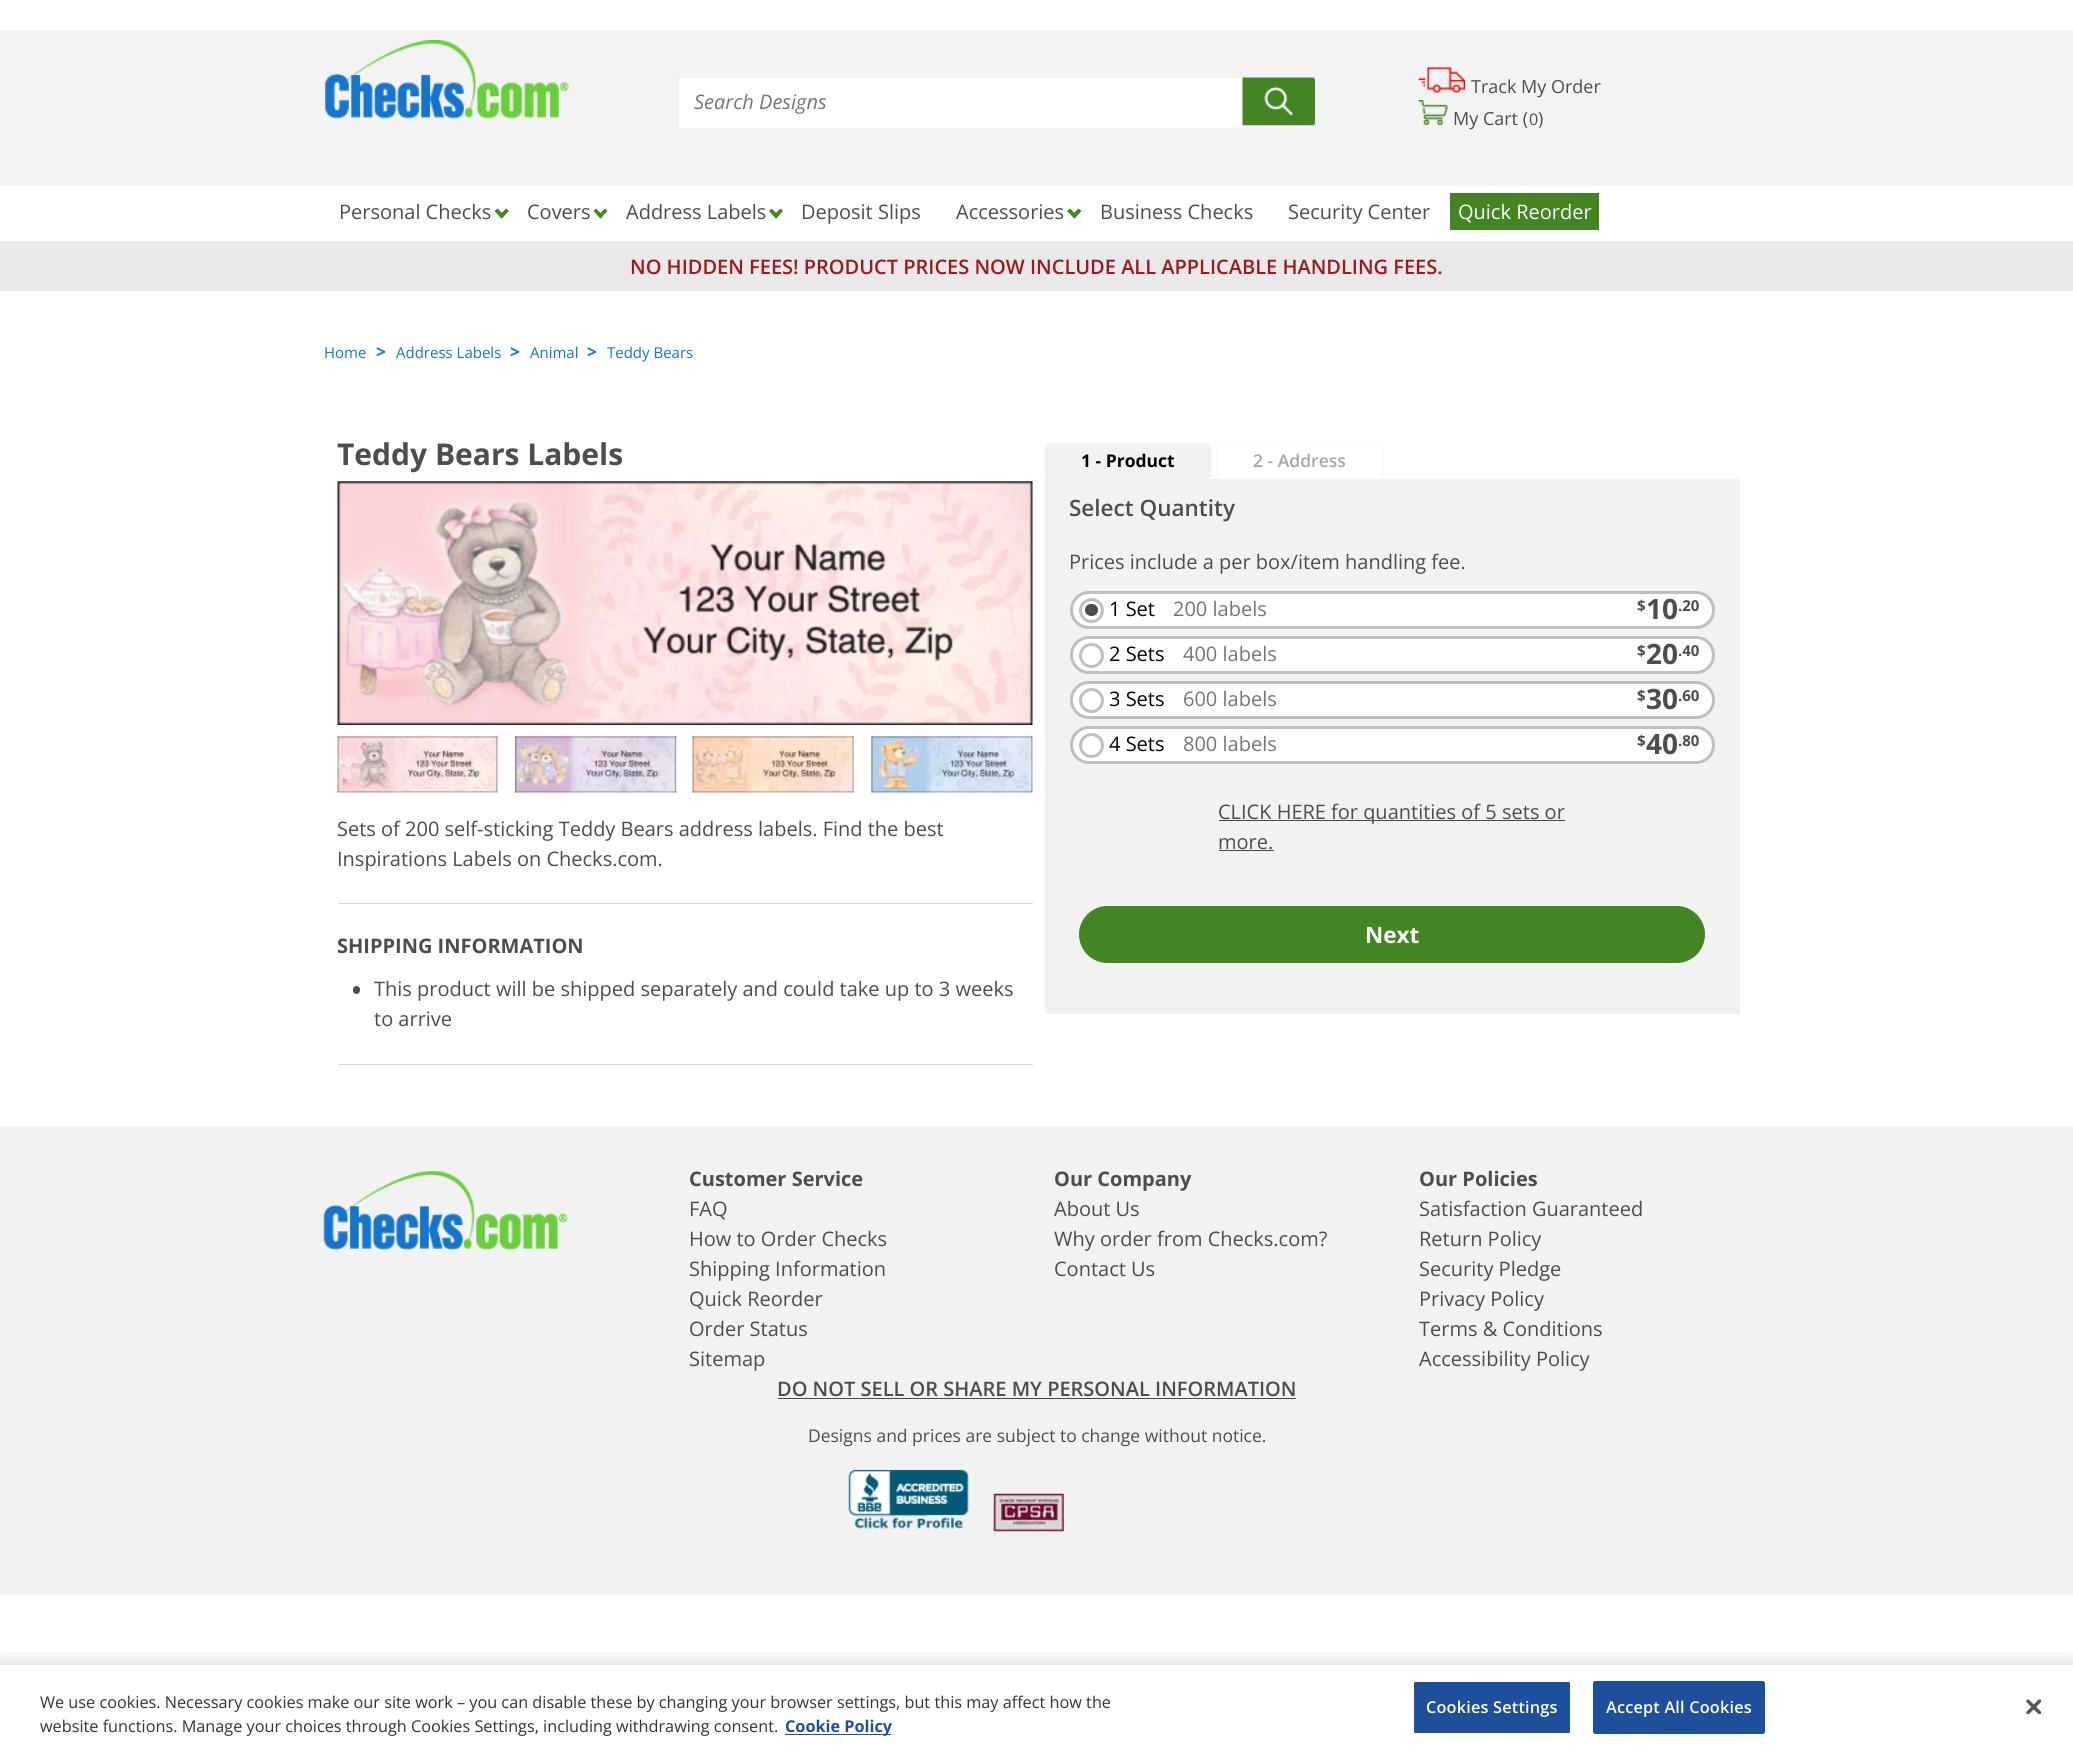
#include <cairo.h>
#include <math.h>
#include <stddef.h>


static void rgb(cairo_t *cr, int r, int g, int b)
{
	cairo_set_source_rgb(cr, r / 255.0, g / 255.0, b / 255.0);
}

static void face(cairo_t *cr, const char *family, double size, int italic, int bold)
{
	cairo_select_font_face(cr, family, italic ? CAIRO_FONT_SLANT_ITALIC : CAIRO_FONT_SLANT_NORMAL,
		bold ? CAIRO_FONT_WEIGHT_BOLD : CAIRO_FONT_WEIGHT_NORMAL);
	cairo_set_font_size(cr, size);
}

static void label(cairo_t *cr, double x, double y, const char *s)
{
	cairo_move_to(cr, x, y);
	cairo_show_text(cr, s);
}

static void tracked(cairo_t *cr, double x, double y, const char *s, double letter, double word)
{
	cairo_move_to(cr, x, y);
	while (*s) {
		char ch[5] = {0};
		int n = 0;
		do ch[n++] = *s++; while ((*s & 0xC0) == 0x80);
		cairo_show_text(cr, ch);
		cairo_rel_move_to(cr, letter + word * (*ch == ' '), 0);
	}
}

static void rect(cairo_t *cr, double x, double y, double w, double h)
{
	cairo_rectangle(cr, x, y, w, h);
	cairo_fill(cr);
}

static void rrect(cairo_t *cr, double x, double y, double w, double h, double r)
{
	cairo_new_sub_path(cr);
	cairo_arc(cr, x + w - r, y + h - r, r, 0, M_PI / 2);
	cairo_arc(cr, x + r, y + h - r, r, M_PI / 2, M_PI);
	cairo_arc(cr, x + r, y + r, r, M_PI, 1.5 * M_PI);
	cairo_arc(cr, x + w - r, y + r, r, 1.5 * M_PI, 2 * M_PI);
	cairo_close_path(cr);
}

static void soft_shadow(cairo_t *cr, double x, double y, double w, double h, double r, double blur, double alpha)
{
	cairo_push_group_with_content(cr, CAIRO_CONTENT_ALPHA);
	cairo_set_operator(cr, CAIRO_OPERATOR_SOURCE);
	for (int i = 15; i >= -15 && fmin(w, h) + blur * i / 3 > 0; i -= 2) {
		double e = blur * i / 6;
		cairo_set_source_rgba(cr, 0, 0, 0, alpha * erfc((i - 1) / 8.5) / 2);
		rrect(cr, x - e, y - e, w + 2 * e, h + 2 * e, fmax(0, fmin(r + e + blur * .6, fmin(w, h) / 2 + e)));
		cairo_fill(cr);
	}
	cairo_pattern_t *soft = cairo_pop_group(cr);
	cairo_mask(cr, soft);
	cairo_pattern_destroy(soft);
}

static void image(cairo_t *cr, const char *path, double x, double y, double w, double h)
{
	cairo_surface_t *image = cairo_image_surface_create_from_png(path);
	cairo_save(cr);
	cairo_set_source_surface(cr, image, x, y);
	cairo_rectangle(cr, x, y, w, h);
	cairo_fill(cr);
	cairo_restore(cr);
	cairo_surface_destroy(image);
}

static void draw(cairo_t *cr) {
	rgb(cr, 255, 255, 255);
	cairo_paint(cr);
	rgb(cr, 243, 243, 243);
	rect(cr, 0, 30, 2073, 156);
	image(cr, "image0.png", 325, 40, 244, 79);
	rgb(cr, 255, 255, 255);
	rect(cr, 679, 78, 636, 50);
	face(cr, "Open Sans", 20, 1, 0);
	rgb(cr, 117, 117, 117);
	label(cr, 694, 109, "Search Designs");
	image(cr, "image1.png", 1242, 77, 73, 49);
	image(cr, "image2.png", 1418, 67, 47, 26);
	face(cr, "Open Sans", 18, 0, 0);
	rgb(cr, 77, 77, 77);
	label(cr, 1471, 93, "Track My Order");
	image(cr, "image3.png", 1418, 100, 30, 25);
	label(cr, 1453, 125, "My Cart (");
	face(cr, "Open Sans", 16, 0, 0);
	label(cr, 1529, 125, "0");
	face(cr, "Open Sans", 18, 0, 0);
	label(cr, 1538, 125, ")");
	face(cr, "Open Sans", 20, 0, 0);
	label(cr, 339, 219, "Personal Checks");
	rgb(cr, 67, 133, 35);
	cairo_new_path(cr);
	cairo_move_to(cr, 509, 211);
	cairo_line_to(cr, 501.5, 218.5);
	cairo_line_to(cr, 499, 215.5);
	cairo_line_to(cr, 506, 208.5);
	cairo_close_path(cr);
	cairo_fill(cr);
	cairo_new_path(cr);
	cairo_move_to(cr, 504.5, 215.5);
	cairo_line_to(cr, 501.5, 218.5);
	cairo_line_to(cr, 494.5, 211);
	cairo_line_to(cr, 497.5, 208.5);
	cairo_close_path(cr);
	cairo_fill(cr);
	rgb(cr, 77, 77, 77);
	label(cr, 527, 219, "Covers");
	rgb(cr, 67, 133, 35);
	cairo_new_path(cr);
	cairo_move_to(cr, 607.5, 211);
	cairo_line_to(cr, 600.5, 218.5);
	cairo_line_to(cr, 598, 215.5);
	cairo_line_to(cr, 605, 208.5);
	cairo_close_path(cr);
	cairo_fill(cr);
	cairo_new_path(cr);
	cairo_move_to(cr, 603, 215.5);
	cairo_line_to(cr, 600.5, 218.5);
	cairo_line_to(cr, 593.5, 211);
	cairo_line_to(cr, 596, 208.5);
	cairo_close_path(cr);
	cairo_fill(cr);
	rgb(cr, 77, 77, 77);
	label(cr, 626, 219, "Address Labels");
	rgb(cr, 67, 133, 35);
	cairo_new_path(cr);
	cairo_move_to(cr, 783, 211);
	cairo_line_to(cr, 776, 218.5);
	cairo_line_to(cr, 773.5, 215.5);
	cairo_line_to(cr, 780.5, 208.5);
	cairo_close_path(cr);
	cairo_fill(cr);
	cairo_new_path(cr);
	cairo_move_to(cr, 778.5, 215.5);
	cairo_line_to(cr, 776, 218.5);
	cairo_line_to(cr, 769, 211);
	cairo_line_to(cr, 771.5, 208.5);
	cairo_close_path(cr);
	cairo_fill(cr);
	rgb(cr, 77, 77, 77);
	label(cr, 801, 219, "Deposit Slips");
	label(cr, 956, 219, "Accessories");
	rgb(cr, 67, 133, 35);
	cairo_new_path(cr);
	cairo_move_to(cr, 1081.5, 211);
	cairo_line_to(cr, 1074.5, 218.5);
	cairo_line_to(cr, 1071.5, 215.5);
	cairo_line_to(cr, 1078.5, 208.5);
	cairo_close_path(cr);
	cairo_fill(cr);
	cairo_new_path(cr);
	cairo_move_to(cr, 1077, 215.5);
	cairo_line_to(cr, 1074.5, 218.5);
	cairo_line_to(cr, 1067, 211);
	cairo_line_to(cr, 1070, 208.5);
	cairo_close_path(cr);
	cairo_fill(cr);
	rgb(cr, 77, 77, 77);
	label(cr, 1100, 219, "Business Checks");
	label(cr, 1288, 219, "Security Center");
	rgb(cr, 67, 133, 35);
	rect(cr, 1450, 193, 149, 37);
	rgb(cr, 255, 255, 255);
	label(cr, 1458, 219, "Quick Reorder");
	rgb(cr, 233, 233, 233);
	rect(cr, 0, 241, 2073, 50);
	face(cr, "Open Sans SemiBold", 20, 0, 0);
	rgb(cr, 157, 24, 33);
	label(cr, 630, 274, "NO HIDDEN FEES! PRODUCT PRICES NOW INCLUDE ALL APPLICABLE HANDLING FEES.");
	face(cr, "Open Sans", 15, 0, 0);
	rgb(cr, 20, 117, 204);
	label(cr, 324, 358, "Home");
	face(cr, "Open Sans", 17.5, 0, 1);
	label(cr, 376, 358, ">");
	face(cr, "Open Sans", 15, 0, 0);
	label(cr, 396, 358, "Address Labels");
	face(cr, "Open Sans", 17.5, 0, 1);
	label(cr, 510, 358, ">");
	face(cr, "Open Sans", 15, 0, 0);
	label(cr, 530, 358, "Animal");
	face(cr, "Open Sans", 17.5, 0, 1);
	label(cr, 587, 358, ">");
	face(cr, "Open Sans", 15, 0, 0);
	label(cr, 607, 358, "Teddy Bears");
	face(cr, "Open Sans", 30, 0, 1);
	rgb(cr, 77, 77, 77);
	label(cr, 337, 465, "Teddy Bears Labels");
	image(cr, "image4.png", 337, 481, 696, 244);
	image(cr, "image5.png", 337, 736, 161, 57);
	image(cr, "image6.png", 515, 736, 162, 57);
	image(cr, "image7.png", 692, 736, 162, 57);
	image(cr, "image8.png", 871, 736, 162, 57);
	face(cr, "Open Sans", 20, 0, 0);
	label(cr, 337, 836, "Sets of 200 self-sticking Teddy Bears address labels. Find the best");
	label(cr, 337, 866, "Inspirations Labels on Checks.com.");
	rgb(cr, 218, 218, 218);
	rect(cr, 338, 903, 695, 1);
	face(cr, "Open Sans", 20, 0, 1);
	rgb(cr, 77, 77, 77);
	label(cr, 337, 953, "SHIPPING INFORMATION");
	rrect(cr, 353, 986, 7, 8, 3.5);
	cairo_fill(cr);
	face(cr, "Open Sans", 20, 0, 0);
	label(cr, 374, 996, "This product will be shipped separately and could take up to 3 weeks");
	label(cr, 374, 1026, "to arrive");
	rgb(cr, 218, 218, 218);
	rect(cr, 338, 1064, 695, 1);
	rgb(cr, 242, 242, 242);
	rect(cr, 1045, 479, 695, 535);
	rrect(cr, 1045.5, 443.5, 165, 36, 3.5);
	cairo_fill_preserve(cr);
	cairo_set_line_width(cr, 1);
	cairo_stroke(cr);
	face(cr, "Open Sans", 17.5, 0, 1);
	rgb(cr, 0, 0, 0);
	label(cr, 1081, 467, "1 - Product");
	face(cr, "Open Sans SemiBold", 22.5, 0, 0);
	rgb(cr, 77, 77, 77);
	label(cr, 1069, 516, "Select Quantity");
	face(cr, "Open Sans", 20, 0, 0);
	label(cr, 1069, 569, "Prices include a per box/item handling fee.");
	rgb(cr, 255, 255, 255);
	rrect(cr, 1071.5, 592.5, 642, 35, 17.5);
	cairo_fill_preserve(cr);
	rgb(cr, 191, 191, 191);
	cairo_set_line_width(cr, 3);
	cairo_stroke(cr);
	cairo_arc(cr, 1091.5, 610.5, 11, 0, 2 * M_PI);
	cairo_stroke(cr);
	rgb(cr, 77, 77, 77);
	rrect(cr, 1085, 604, 13, 12, 6);
	cairo_fill(cr);
	rgb(cr, 0, 0, 0);
	label(cr, 1109, 616, "1 Set");
	rgb(cr, 117, 117, 117);
	label(cr, 1173, 616, "200 labels");
	face(cr, "Open Sans", 15, 0, 1);
	rgb(cr, 77, 77, 77);
	label(cr, 1637, 611, "$");
	face(cr, "Open Sans", 28, 0, 1);
	label(cr, 1646, 619, "10");
	face(cr, "Open Sans", 15, 0, 1);
	label(cr, 1678, 611, ".20");
	rgb(cr, 255, 255, 255);
	rrect(cr, 1071.5, 637.5, 642, 35, 17.5);
	cairo_fill_preserve(cr);
	rgb(cr, 191, 191, 191);
	cairo_stroke(cr);
	cairo_arc(cr, 1091.5, 655.5, 11, 0, 2 * M_PI);
	cairo_stroke(cr);
	face(cr, "Open Sans", 20, 0, 0);
	rgb(cr, 0, 0, 0);
	label(cr, 1109, 661, "2 Sets");
	rgb(cr, 117, 117, 117);
	label(cr, 1183, 661, "400 labels");
	face(cr, "Open Sans", 15, 0, 1);
	rgb(cr, 77, 77, 77);
	label(cr, 1637, 656, "$");
	face(cr, "Open Sans", 28, 0, 1);
	label(cr, 1646, 664, "20");
	face(cr, "Open Sans", 15, 0, 1);
	label(cr, 1678, 656, ".40");
	rgb(cr, 255, 255, 255);
	rrect(cr, 1071.5, 682.5, 642, 35, 17.5);
	cairo_fill_preserve(cr);
	rgb(cr, 191, 191, 191);
	cairo_stroke(cr);
	cairo_arc(cr, 1091.5, 700.5, 11, 0, 2 * M_PI);
	cairo_stroke(cr);
	face(cr, "Open Sans", 20, 0, 0);
	rgb(cr, 0, 0, 0);
	label(cr, 1109, 706, "3 Sets");
	rgb(cr, 117, 117, 117);
	label(cr, 1183, 706, "600 labels");
	face(cr, "Open Sans", 15, 0, 1);
	rgb(cr, 77, 77, 77);
	label(cr, 1637, 701, "$");
	face(cr, "Open Sans", 28, 0, 1);
	label(cr, 1646, 709, "30");
	face(cr, "Open Sans", 15, 0, 1);
	label(cr, 1678, 701, ".60");
	rgb(cr, 255, 255, 255);
	rrect(cr, 1071.5, 727.5, 642, 35, 17.5);
	cairo_fill_preserve(cr);
	rgb(cr, 191, 191, 191);
	cairo_stroke(cr);
	cairo_arc(cr, 1091.5, 745.5, 11, 0, 2 * M_PI);
	cairo_stroke(cr);
	face(cr, "Open Sans", 20, 0, 0);
	rgb(cr, 0, 0, 0);
	label(cr, 1109, 751, "4 Sets");
	rgb(cr, 117, 117, 117);
	label(cr, 1183, 751, "800 labels");
	face(cr, "Open Sans", 15, 0, 1);
	rgb(cr, 77, 77, 77);
	label(cr, 1637, 746, "$");
	face(cr, "Open Sans", 28, 0, 1);
	label(cr, 1646, 754, "40");
	face(cr, "Open Sans", 15, 0, 1);
	label(cr, 1678, 746, ".80");
	face(cr, "Open Sans", 20, 0, 0);
	label(cr, 1218, 819, "CLICK HERE");
	rgb(cr, 73, 73, 73);
	rect(cr, 1219, 820, 346, 1);
	rgb(cr, 77, 77, 77);
	label(cr, 1331, 819, "for quantities of 5");
	label(cr, 1502, 819, "sets or");
	label(cr, 1218, 849, "more.");
	rgb(cr, 73, 73, 73);
	rect(cr, 1219, 850, 55, 1);
	rgb(cr, 67, 133, 35);
	rrect(cr, 1080.5, 907.5, 623, 54, 27);
	cairo_fill_preserve(cr);
	cairo_stroke(cr);
	face(cr, "Open Sans", 22.5, 0, 1);
	rgb(cr, 255, 255, 255);
	label(cr, 1365, 943, "Next");
	cairo_set_source_rgba(cr, 1, 1, 1, 0.5);
	rrect(cr, 1216, 443, 168, 37, 4);
	cairo_fill(cr);
	rrect(cr, 1216.5, 443.5, 167, 36, 3.5);
	cairo_set_source_rgba(cr, 0.949, 0.949, 0.949, 0.5);
	cairo_set_line_width(cr, 1);
	cairo_stroke(cr);
	face(cr, "Open Sans SemiBold", 17.5, 0, 0);
	rgb(cr, 166, 166, 166);
	label(cr, 1253, 467, "2 - Address");
	rgb(cr, 242, 242, 242);
	rect(cr, 0, 1126, 2073, 469);
	image(cr, "image9.png", 323, 1171, 245, 79);
	face(cr, "Open Sans", 20, 0, 1);
	rgb(cr, 77, 77, 77);
	label(cr, 689, 1186, "Customer Service");
	face(cr, "Open Sans", 20, 0, 0);
	label(cr, 689, 1216, "FAQ");
	label(cr, 689, 1246, "How to Order Checks");
	label(cr, 689, 1276, "Shipping Information");
	label(cr, 689, 1306, "Quick Reorder");
	label(cr, 689, 1336, "Order Status");
	label(cr, 689, 1366, "Sitemap");
	face(cr, "Open Sans", 20, 0, 1);
	label(cr, 1054, 1186, "Our Company");
	face(cr, "Open Sans", 20, 0, 0);
	label(cr, 1054, 1216, "About Us");
	label(cr, 1054, 1246, "Why order from Checks.com?");
	label(cr, 1054, 1276, "Contact Us");
	face(cr, "Open Sans", 20, 0, 1);
	label(cr, 1419, 1186, "Our Policies");
	face(cr, "Open Sans", 20, 0, 0);
	label(cr, 1419, 1216, "Satisfaction Guaranteed");
	label(cr, 1419, 1246, "Return Policy");
	label(cr, 1419, 1276, "Security Pledge");
	label(cr, 1419, 1306, "Privacy Policy");
	label(cr, 1419, 1336, "Terms & Conditions");
	label(cr, 1419, 1366, "Accessibility Policy");
	face(cr, "Open Sans SemiBold", 20, 0, 0);
	label(cr, 777, 1396, "DO NOT SELL OR SHARE MY PERSONAL INFORMATION");
	rgb(cr, 73, 73, 73);
	rect(cr, 778, 1398, 518, 1);
	face(cr, "Open Sans", 17.5, 0, 0);
	rgb(cr, 77, 77, 77);
	label(cr, 808, 1442, "Designs and prices are subject to change without notice.");
	image(cr, "image10.png", 848, 1469, 121, 60);
	image(cr, "image11.png", 993, 1493, 71, 39);
	cairo_save(cr);
	cairo_rectangle(cr, 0, 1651, 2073, 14);
	cairo_clip(cr);
	rgb(cr, 0, 0, 0);
	soft_shadow(cr, 0, 1665, 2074, 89, 0, 11, 0.2);
	cairo_restore(cr);
	face(cr, "Open Sans", 16.25, 0, 0);
	rgb(cr, 51, 51, 51);
	label(cr, 40, 1708, "We use cookies. Necessary cookies make our site work – you can disable these by changing your browser settings, but this may affect how the");
	label(cr, 40, 1732, "website functions. Manage your choices through Cookies Settings, including withdrawing consent.");
	rgb(cr, 29, 79, 154);
	rect(cr, 785, 1734, 106, 1);
	face(cr, "Open Sans", 16.25, 0, 1);
	label(cr, 785, 1732, "Cookie Policy");
	rrect(cr, 1413.5, 1681.5, 157, 52, 2);
	cairo_fill_preserve(cr);
	rgb(cr, 255, 255, 255);
	cairo_stroke(cr);
	face(cr, "Open Sans SemiBold", 16.25, 0, 0);
	tracked(cr, 1426, 1713, "Cookies Settings", 0.2, 0);
	rgb(cr, 29, 79, 154);
	rrect(cr, 1593.5, 1681.5, 171, 52, 2);
	cairo_fill_preserve(cr);
	cairo_stroke(cr);
	rgb(cr, 255, 255, 255);
	tracked(cr, 1606, 1713, "Accept All Cookies", 0.2, 0);
	image(cr, "image12.png", 2026, 1699, 15, 15);
}

int main(void) {
	cairo_surface_t *surface = cairo_image_surface_create(CAIRO_FORMAT_RGB24, 2073, 1753);
	cairo_t *cr = cairo_create(surface);
	cairo_font_options_t *options = cairo_font_options_create();
	cairo_font_options_set_hint_metrics(options, CAIRO_HINT_METRICS_OFF);
	cairo_font_options_set_hint_style(options, CAIRO_HINT_STYLE_NONE);
	cairo_set_font_options(cr, options);
	cairo_set_miter_limit(cr, 4);
	draw(cr);
	cairo_surface_write_to_png(surface, "render.png");
	cairo_font_options_destroy(options);
	cairo_destroy(cr);
	cairo_surface_destroy(surface);
	return 0;
}
